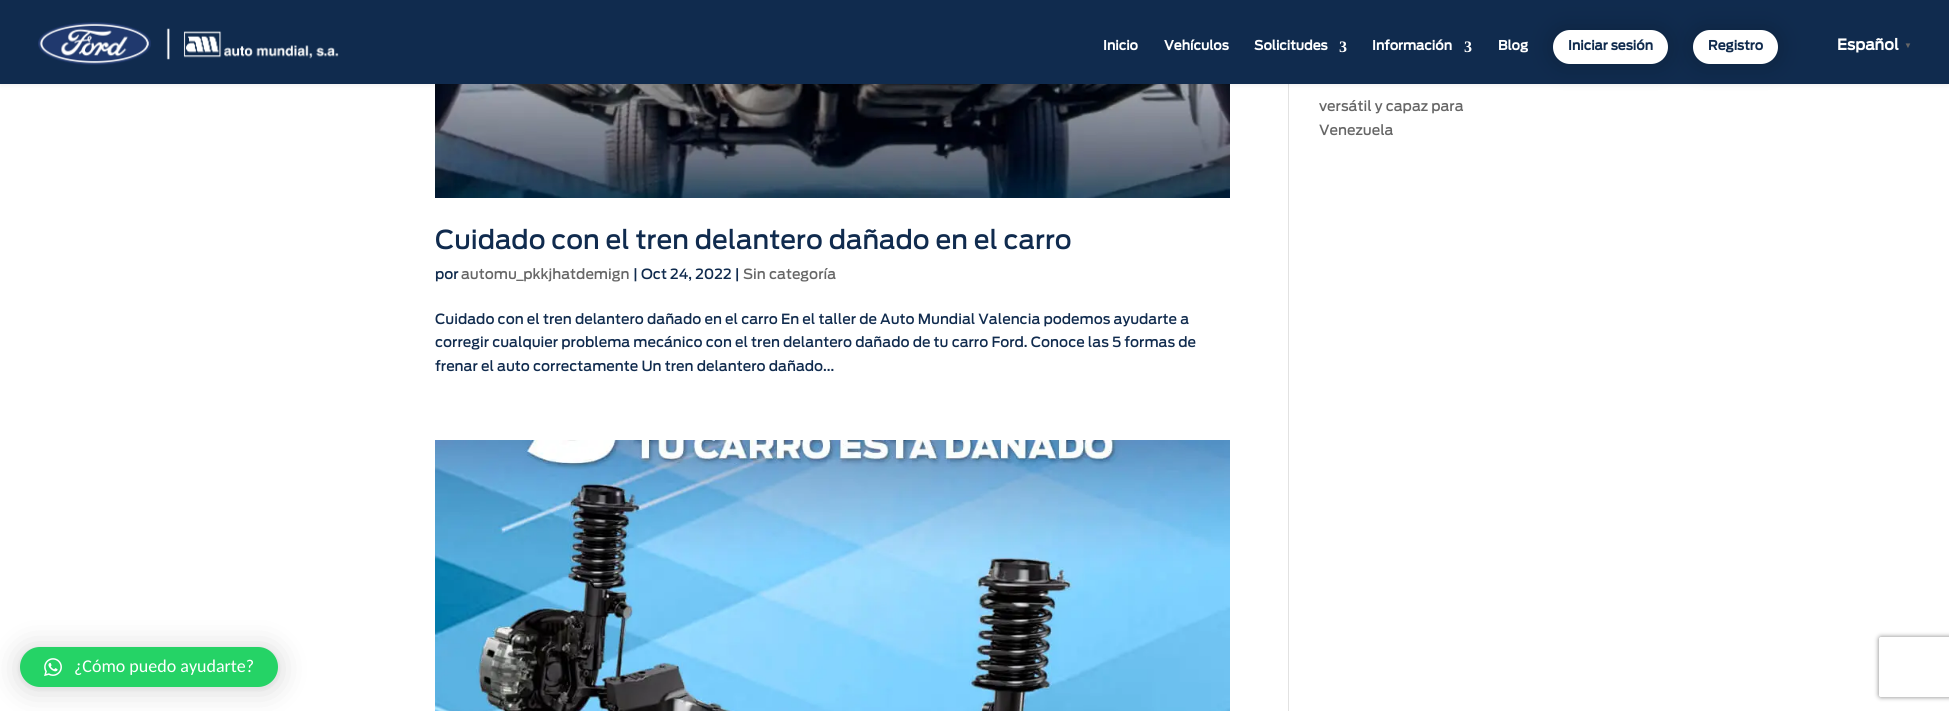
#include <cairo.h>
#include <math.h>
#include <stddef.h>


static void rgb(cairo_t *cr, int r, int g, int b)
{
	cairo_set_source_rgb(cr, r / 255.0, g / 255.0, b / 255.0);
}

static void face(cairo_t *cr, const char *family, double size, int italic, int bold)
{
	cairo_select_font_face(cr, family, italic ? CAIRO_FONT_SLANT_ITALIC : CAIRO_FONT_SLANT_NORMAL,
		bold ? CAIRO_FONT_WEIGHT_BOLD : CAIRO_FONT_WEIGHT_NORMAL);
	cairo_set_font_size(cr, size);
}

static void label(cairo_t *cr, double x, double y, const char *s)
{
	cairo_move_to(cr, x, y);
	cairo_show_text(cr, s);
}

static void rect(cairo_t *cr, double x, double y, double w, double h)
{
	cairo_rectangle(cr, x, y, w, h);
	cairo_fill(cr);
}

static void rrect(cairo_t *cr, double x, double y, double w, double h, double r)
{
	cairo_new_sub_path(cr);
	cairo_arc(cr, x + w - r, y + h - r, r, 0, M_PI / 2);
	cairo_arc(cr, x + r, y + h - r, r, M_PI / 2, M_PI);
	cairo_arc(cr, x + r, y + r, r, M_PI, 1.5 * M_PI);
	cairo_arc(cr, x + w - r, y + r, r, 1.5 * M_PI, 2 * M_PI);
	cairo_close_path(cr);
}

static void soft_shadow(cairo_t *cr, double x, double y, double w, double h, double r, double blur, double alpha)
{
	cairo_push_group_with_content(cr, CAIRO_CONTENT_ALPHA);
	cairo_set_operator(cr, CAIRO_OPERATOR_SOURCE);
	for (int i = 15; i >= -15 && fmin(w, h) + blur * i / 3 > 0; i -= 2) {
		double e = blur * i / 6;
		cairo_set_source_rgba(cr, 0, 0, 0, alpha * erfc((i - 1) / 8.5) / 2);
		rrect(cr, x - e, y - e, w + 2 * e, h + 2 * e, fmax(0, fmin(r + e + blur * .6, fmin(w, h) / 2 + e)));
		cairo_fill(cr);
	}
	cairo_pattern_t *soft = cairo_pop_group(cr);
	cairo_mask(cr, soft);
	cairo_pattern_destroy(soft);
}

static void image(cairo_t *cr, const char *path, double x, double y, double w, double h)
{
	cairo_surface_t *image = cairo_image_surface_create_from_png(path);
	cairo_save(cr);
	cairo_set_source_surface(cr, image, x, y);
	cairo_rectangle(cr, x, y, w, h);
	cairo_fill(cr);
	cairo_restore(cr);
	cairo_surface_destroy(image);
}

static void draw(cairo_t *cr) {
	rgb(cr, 255, 255, 255);
	cairo_paint(cr);
	rgb(cr, 226, 226, 226);
	rect(cr, 1288, 84, 1, 627);
	image(cr, "image1.png", 435, 84, 795, 114);
	rgb(cr, 0, 0, 0);
	soft_shadow(cr, 0, 0, 1949, 84, 0, 3.5, 0.1);
	rgb(cr, 16, 43, 78);
	rect(cr, 0, 0, 1949, 84);
	image(cr, "image0.png", 38, 22, 301, 43);
	face(cr, "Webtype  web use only", 13, 0, 1);
	rgb(cr, 255, 255, 255);
	label(cr, 1103, 50, "Inicio");
	label(cr, 1164, 50, "Vehículos");
	label(cr, 1254, 50, "Solicitudes");
	face(cr, "Liberation Serif", 16, 0, 1);
	label(cr, 1339, 52, "3");
	face(cr, "Webtype  web use only", 13, 0, 1);
	label(cr, 1372, 50, "Información");
	face(cr, "Liberation Serif", 16, 0, 1);
	label(cr, 1464, 52, "3");
	face(cr, "Webtype  web use only", 13, 0, 1);
	label(cr, 1498, 50, "Blog");
	rgb(cr, 0, 0, 0);
	soft_shadow(cr, 1553, 30, 115, 34, 17, 12.5, 0.2);
	rgb(cr, 255, 255, 255);
	rrect(cr, 1553, 30, 115, 34, 17);
	cairo_fill(cr);
	rgb(cr, 16, 43, 78);
	label(cr, 1568, 50, "Iniciar sesión");
	rgb(cr, 0, 0, 0);
	soft_shadow(cr, 1693, 30, 85, 34, 17, 12.5, 0.2);
	rgb(cr, 255, 255, 255);
	rrect(cr, 1693, 30, 85, 34, 17);
	cairo_fill(cr);
	rgb(cr, 16, 43, 78);
	label(cr, 1708, 50, "Registro");
	face(cr, "Webtype  web use only", 15, 0, 1);
	rgb(cr, 255, 255, 255);
	label(cr, 1837, 50, "Español");
	face(cr, "Liberation Serif", 8, 0, 1);
	rgb(cr, 102, 102, 102);
	label(cr, 1904, 48, "▼");
	face(cr, "Webtype  web use only Medium", 14, 0, 0);
	label(cr, 1319, 111, "versátil y capaz para");
	label(cr, 1319, 135, "Venezuela");
	face(cr, "Webtype  web use only Medium", 26, 0, 0);
	rgb(cr, 16, 43, 78);
	label(cr, 435, 249, "Cuidado con el tren delantero dañado en el carro");
	face(cr, "Webtype  web use only Medium", 14, 0, 0);
	label(cr, 435, 279, "por");
	rgb(cr, 102, 102, 102);
	label(cr, 461, 279, "automu_pkkjhatdemign");
	rgb(cr, 16, 43, 78);
	label(cr, 633, 279, "| Oct 24, 2022 |");
	rgb(cr, 102, 102, 102);
	label(cr, 743, 279, "Sin categoría");
	rgb(cr, 16, 43, 78);
	label(cr, 435, 324, "Cuidado con el tren delantero dañado en el carro En el taller de Auto Mundial Valencia podemos ayudarte a");
	label(cr, 435, 347, "corregir cualquier problema mecánico con el tren delantero dañado de tu carro Ford. Conoce las 5 formas de");
	label(cr, 435, 371, "frenar el auto correctamente Un tren delantero dañado...");
	image(cr, "image2.png", 435, 440, 795, 271);
	rgb(cr, 0, 0, 0);
	soft_shadow(cr, 20, 649, 258, 40, 20, 16, 0.16);
	soft_shadow(cr, 20, 648, 258, 40, 20, 3, 0.06);
	rgb(cr, 37, 211, 102);
	rrect(cr, 20, 647, 258, 40, 20);
	cairo_fill(cr);
	image(cr, "image3.png", 44, 658, 18, 19);
	face(cr, "Carlito", 18, 0, 0);
	rgb(cr, 255, 255, 255);
	label(cr, 74, 672, "¿Cómo puedo ayudarte?");
	cairo_save(cr);
	cairo_set_fill_rule(cr, CAIRO_FILL_RULE_EVEN_ODD);
	cairo_new_path(cr);
	cairo_move_to(cr, 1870, 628);
	cairo_line_to(cr, 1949, 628);
	cairo_line_to(cr, 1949, 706);
	cairo_line_to(cr, 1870, 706);
	cairo_close_path(cr);
	cairo_move_to(cr, 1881, 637);
	cairo_line_to(cr, 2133, 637);
	cairo_curve_to(cr, 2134, 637, 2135, 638, 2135, 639);
	cairo_line_to(cr, 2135, 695);
	cairo_curve_to(cr, 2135, 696, 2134, 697, 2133, 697);
	cairo_line_to(cr, 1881, 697);
	cairo_curve_to(cr, 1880, 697, 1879, 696, 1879, 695);
	cairo_line_to(cr, 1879, 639);
	cairo_curve_to(cr, 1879, 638, 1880, 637, 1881, 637);
	cairo_close_path(cr);
	cairo_clip(cr);
	rgb(cr, 128, 128, 128);
	soft_shadow(cr, 1879, 637, 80, 60, 2, 2.5, 1);
	cairo_restore(cr);
}

int main(void) {
	cairo_surface_t *surface = cairo_image_surface_create(CAIRO_FORMAT_RGB24, 1949, 711);
	cairo_t *cr = cairo_create(surface);
	cairo_font_options_t *options = cairo_font_options_create();
	cairo_font_options_set_hint_metrics(options, CAIRO_HINT_METRICS_OFF);
	cairo_font_options_set_hint_style(options, CAIRO_HINT_STYLE_NONE);
	cairo_set_font_options(cr, options);
	cairo_set_miter_limit(cr, 4);
	draw(cr);
	cairo_surface_write_to_png(surface, "render.png");
	cairo_font_options_destroy(options);
	cairo_destroy(cr);
	cairo_surface_destroy(surface);
	return 0;
}
